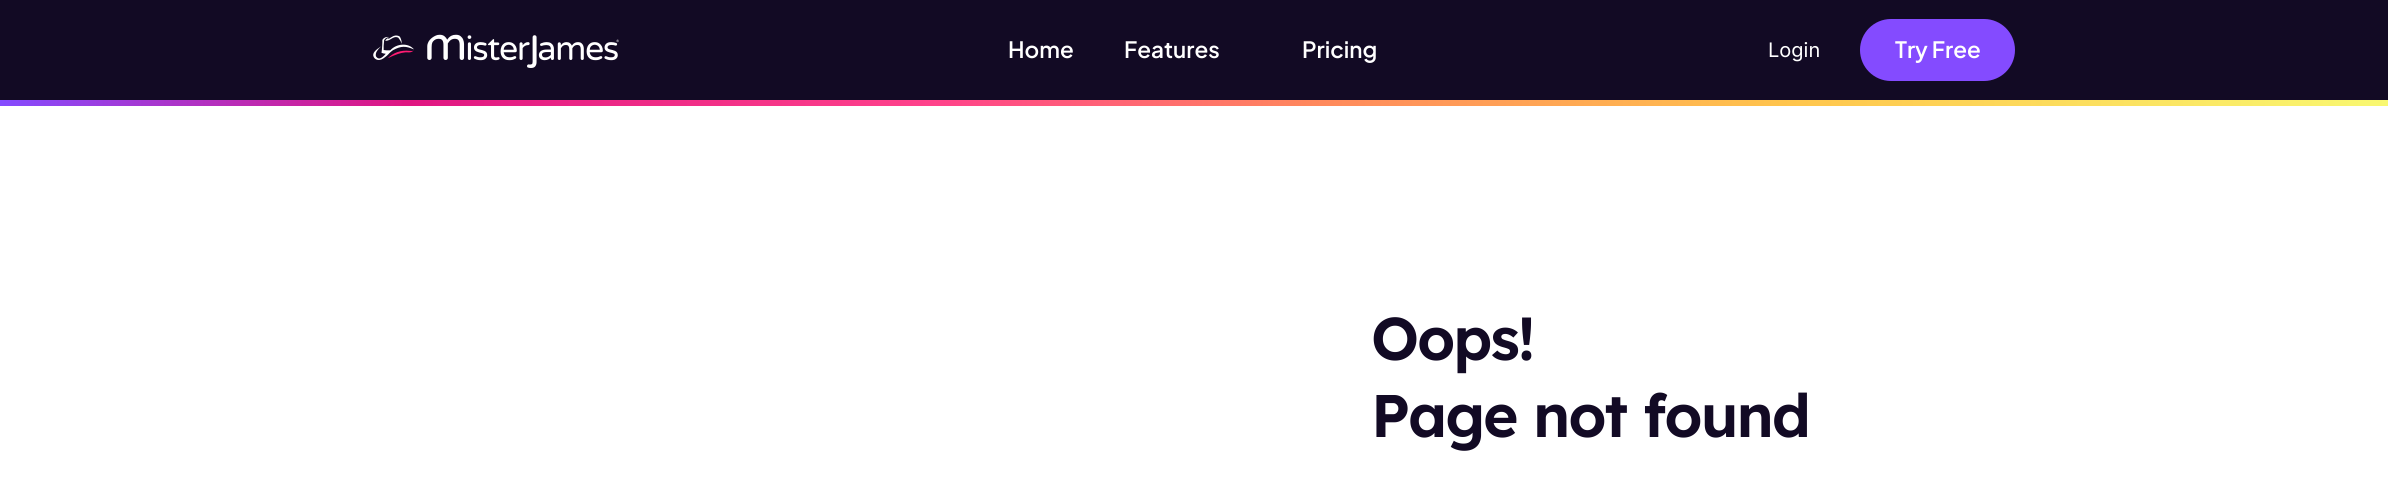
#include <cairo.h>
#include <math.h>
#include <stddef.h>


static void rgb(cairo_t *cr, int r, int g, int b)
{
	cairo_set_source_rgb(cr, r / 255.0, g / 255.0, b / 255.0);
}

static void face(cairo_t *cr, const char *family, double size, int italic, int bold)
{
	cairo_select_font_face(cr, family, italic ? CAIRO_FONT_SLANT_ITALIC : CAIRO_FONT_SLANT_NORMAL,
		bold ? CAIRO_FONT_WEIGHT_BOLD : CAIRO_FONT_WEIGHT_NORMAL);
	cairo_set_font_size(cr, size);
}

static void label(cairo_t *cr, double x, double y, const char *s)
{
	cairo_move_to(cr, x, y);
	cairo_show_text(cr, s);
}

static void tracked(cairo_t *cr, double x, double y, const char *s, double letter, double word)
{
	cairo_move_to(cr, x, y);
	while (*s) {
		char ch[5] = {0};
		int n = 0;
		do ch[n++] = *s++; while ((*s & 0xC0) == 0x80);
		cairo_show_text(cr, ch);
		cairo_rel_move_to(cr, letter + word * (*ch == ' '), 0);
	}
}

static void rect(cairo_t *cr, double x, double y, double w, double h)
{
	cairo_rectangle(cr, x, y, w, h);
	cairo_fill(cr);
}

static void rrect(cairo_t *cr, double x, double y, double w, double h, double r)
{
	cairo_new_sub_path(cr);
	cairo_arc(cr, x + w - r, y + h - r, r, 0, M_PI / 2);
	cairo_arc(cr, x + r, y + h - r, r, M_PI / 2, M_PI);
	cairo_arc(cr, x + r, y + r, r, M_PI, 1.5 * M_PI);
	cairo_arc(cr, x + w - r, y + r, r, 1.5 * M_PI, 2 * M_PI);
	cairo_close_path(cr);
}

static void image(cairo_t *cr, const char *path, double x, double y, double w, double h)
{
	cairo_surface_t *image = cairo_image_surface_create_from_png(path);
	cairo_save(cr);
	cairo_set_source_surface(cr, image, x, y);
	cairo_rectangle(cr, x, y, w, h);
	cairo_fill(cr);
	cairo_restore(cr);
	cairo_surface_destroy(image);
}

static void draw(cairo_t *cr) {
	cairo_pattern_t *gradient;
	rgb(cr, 255, 255, 255);
	cairo_paint(cr);
	rgb(cr, 18, 10, 36);
	rect(cr, 0, 0, 2388, 100);
	image(cr, "image0.png", 373, 34, 246, 34);
	face(cr, "Plus Jakarta Sans SemiBold", 22.5, 0, 0);
	rgb(cr, 255, 255, 255);
	label(cr, 1008, 58, "Home");
	label(cr, 1124, 58, "Features");
	label(cr, 1302, 58, "Pricing");
	face(cr, "Inter", 20, 0, 0);
	label(cr, 1768, 57, "Login");
	rgb(cr, 132, 75, 255);
	rrect(cr, 1860, 19, 155, 62, 31);
	cairo_fill(cr);
	face(cr, "Plus Jakarta Sans SemiBold", 22.5, 0, 0);
	rgb(cr, 255, 255, 255);
	label(cr, 1895, 58, "Try Free");
	gradient = cairo_pattern_create_linear(0, 103, 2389, 103);
	cairo_pattern_add_color_stop_rgba(gradient, 0, 0.518, 0.294, 1, 1);
	cairo_pattern_add_color_stop_rgba(gradient, 0.17, 0.878, 0.086, 0.51, 1);
	cairo_pattern_add_color_stop_rgba(gradient, 0.39, 1, 0.259, 0.545, 1);
	cairo_pattern_add_color_stop_rgba(gradient, 0.55, 1, 0.533, 0.361, 1);
	cairo_pattern_add_color_stop_rgba(gradient, 0.75, 1, 0.773, 0.298, 1);
	cairo_pattern_add_color_stop_rgba(gradient, 1, 0.976, 0.973, 0.443, 1);
	cairo_set_source(cr, gradient);
	cairo_pattern_destroy(gradient);
	rect(cr, 0, 100, 2388, 6);
	face(cr, "Lexend SemiBold", 60, 0, 0);
	rgb(cr, 18, 10, 36);
	tracked(cr, 1371, 360, "Oops!", -1.9, 0);
	tracked(cr, 1371, 437, "Page not found", -1.9, 0);
}

int main(void) {
	cairo_surface_t *surface = cairo_image_surface_create(CAIRO_FORMAT_RGB24, 2388, 487);
	cairo_t *cr = cairo_create(surface);
	cairo_font_options_t *options = cairo_font_options_create();
	cairo_font_options_set_hint_metrics(options, CAIRO_HINT_METRICS_OFF);
	cairo_font_options_set_hint_style(options, CAIRO_HINT_STYLE_NONE);
	cairo_set_font_options(cr, options);
	cairo_set_miter_limit(cr, 4);
	draw(cr);
	cairo_surface_write_to_png(surface, "render.png");
	cairo_font_options_destroy(options);
	cairo_destroy(cr);
	cairo_surface_destroy(surface);
	return 0;
}
